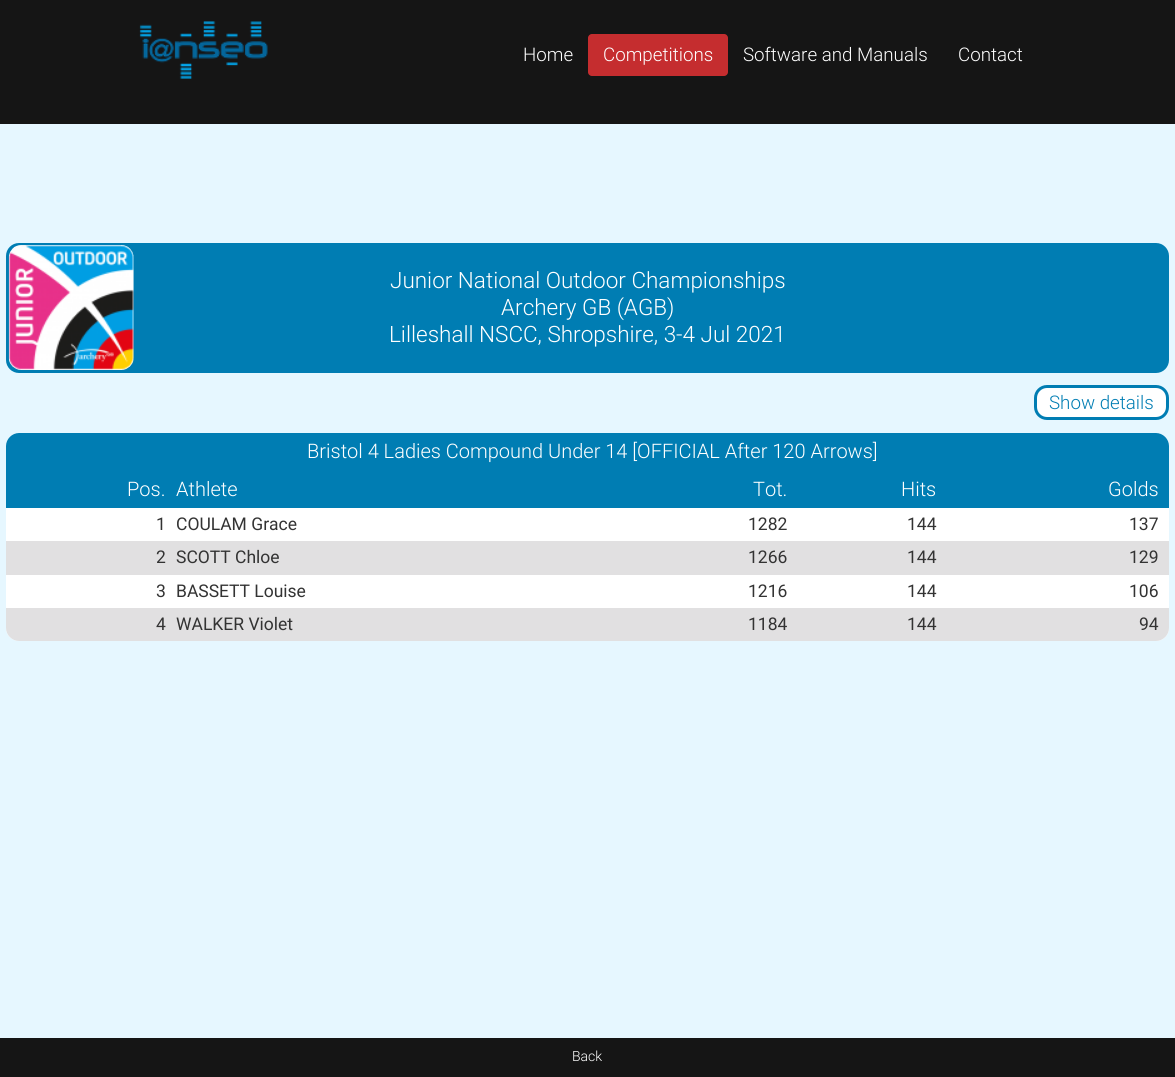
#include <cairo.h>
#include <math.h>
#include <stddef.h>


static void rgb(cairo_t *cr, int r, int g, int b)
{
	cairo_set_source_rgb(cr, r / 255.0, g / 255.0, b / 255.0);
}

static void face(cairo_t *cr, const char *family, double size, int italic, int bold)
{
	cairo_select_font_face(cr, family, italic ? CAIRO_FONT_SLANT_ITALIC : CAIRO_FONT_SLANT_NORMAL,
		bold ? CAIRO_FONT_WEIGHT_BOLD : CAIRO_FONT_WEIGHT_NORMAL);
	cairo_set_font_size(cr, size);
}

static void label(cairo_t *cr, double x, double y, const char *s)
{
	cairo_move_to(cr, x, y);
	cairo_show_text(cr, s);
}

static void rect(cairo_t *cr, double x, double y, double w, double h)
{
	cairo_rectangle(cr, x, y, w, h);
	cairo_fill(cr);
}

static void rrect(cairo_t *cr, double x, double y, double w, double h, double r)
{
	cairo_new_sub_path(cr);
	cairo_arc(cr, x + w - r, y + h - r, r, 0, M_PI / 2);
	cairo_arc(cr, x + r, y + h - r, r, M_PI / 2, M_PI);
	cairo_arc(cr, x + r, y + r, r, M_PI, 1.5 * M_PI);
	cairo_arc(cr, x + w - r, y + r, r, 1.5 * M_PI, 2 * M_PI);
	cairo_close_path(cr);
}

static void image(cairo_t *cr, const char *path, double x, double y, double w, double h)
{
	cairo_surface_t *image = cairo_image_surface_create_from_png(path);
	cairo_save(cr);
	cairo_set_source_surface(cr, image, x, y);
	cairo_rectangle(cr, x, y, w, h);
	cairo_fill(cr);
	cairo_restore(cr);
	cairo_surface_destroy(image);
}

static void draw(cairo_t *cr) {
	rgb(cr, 230, 247, 255);
	cairo_paint(cr);
	rgb(cr, 21, 21, 21);
	rect(cr, 0, 0, 1175, 124);
	image(cr, "image0.png", 139, 21, 129, 58);
	face(cr, "Roboto Light", 18.75, 0, 0);
	rgb(cr, 255, 255, 255);
	label(cr, 523, 61, "Home");
	rgb(cr, 197, 45, 47);
	rrect(cr, 588, 34, 140, 42, 4);
	cairo_fill(cr);
	rgb(cr, 255, 255, 255);
	label(cr, 603, 61, "Competitions");
	label(cr, 743, 61, "Software and Manuals");
	label(cr, 958, 61, "Contact");
	rgb(cr, 0, 125, 179);
	rrect(cr, 6, 243, 1163, 130, 13);
	cairo_fill(cr);
	image(cr, "image1.png", 8, 245, 126, 125);
	face(cr, "Roboto Light", 22.5, 0, 0);
	rgb(cr, 255, 255, 255);
	label(cr, 390, 288, "Junior National Outdoor Championships");
	label(cr, 501, 315, "Archery GB (AGB)");
	label(cr, 389, 342, "Lilleshall NSCC, Shropshire, 3-4 Jul 2021");
	rrect(cr, 1035.5, 386.5, 132, 32, 11.5);
	cairo_fill_preserve(cr);
	rgb(cr, 0, 125, 179);
	cairo_set_line_width(cr, 3);
	cairo_stroke(cr);
	face(cr, "Roboto Light", 18.75, 0, 0);
	label(cr, 1049, 409, "Show details");
	rgb(cr, 255, 255, 255);
	rrect(cr, 6, 433, 1163, 208, 13);
	cairo_fill(cr);
	rgb(cr, 0, 125, 179);
	cairo_new_path(cr);
	cairo_move_to(cr, 19, 433);
	cairo_line_to(cr, 1156, 433);
	cairo_curve_to(cr, 1163, 433, 1169, 439, 1169, 446);
	cairo_line_to(cr, 1169, 470);
	cairo_line_to(cr, 6, 470);
	cairo_line_to(cr, 6, 446);
	cairo_curve_to(cr, 6, 439, 12, 433, 19, 433);
	cairo_close_path(cr);
	cairo_fill(cr);
	face(cr, "Roboto Light", 20, 0, 0);
	rgb(cr, 255, 255, 255);
	label(cr, 307, 458, "Bristol 4 Ladies Compound Under 14 [OFFICIAL After 120 Arrows]");
	rgb(cr, 0, 125, 179);
	rect(cr, 6, 470, 1163, 38);
	rgb(cr, 255, 255, 255);
	label(cr, 127, 496, "Pos.");
	label(cr, 176, 496, "Athlete");
	label(cr, 753, 496, "Tot.");
	label(cr, 901, 496, "Hits");
	label(cr, 1108, 496, "Golds");
	face(cr, "Roboto", 17.5, 0, 0);
	rgb(cr, 51, 51, 51);
	label(cr, 156, 530, "1");
	label(cr, 176, 530, "COULAM Grace");
	label(cr, 748, 530, "1282");
	label(cr, 907, 530, "144");
	label(cr, 1129, 530, "137");
	rgb(cr, 225, 224, 225);
	rect(cr, 6, 541, 1163, 34);
	rgb(cr, 51, 51, 51);
	label(cr, 156, 563, "2");
	label(cr, 176, 563, "SCOTT Chloe");
	label(cr, 748, 563, "1266");
	label(cr, 907, 563, "144");
	label(cr, 1129, 563, "129");
	label(cr, 156, 597, "3");
	label(cr, 176, 597, "BASSETT Louise");
	label(cr, 748, 597, "1216");
	label(cr, 907, 597, "144");
	label(cr, 1129, 597, "106");
	rgb(cr, 225, 224, 225);
	cairo_new_path(cr);
	cairo_move_to(cr, 6, 608);
	cairo_line_to(cr, 1169, 608);
	cairo_line_to(cr, 1169, 628);
	cairo_curve_to(cr, 1169, 635, 1163, 641, 1156, 641);
	cairo_line_to(cr, 19, 641);
	cairo_curve_to(cr, 12, 641, 6, 635, 6, 628);
	cairo_close_path(cr);
	cairo_fill(cr);
	rgb(cr, 51, 51, 51);
	label(cr, 156, 630, "4");
	label(cr, 176, 630, "WALKER Violet");
	label(cr, 748, 630, "1184");
	label(cr, 907, 630, "144");
	label(cr, 1139, 630, "94");
	rgb(cr, 21, 21, 21);
	rect(cr, 0, 1038, 1175, 39);
	face(cr, "Roboto Light", 14, 0, 0);
	rgb(cr, 255, 255, 255);
	label(cr, 572, 1061, "Back");
}

int main(void) {
	cairo_surface_t *surface = cairo_image_surface_create(CAIRO_FORMAT_RGB24, 1175, 1077);
	cairo_t *cr = cairo_create(surface);
	cairo_font_options_t *options = cairo_font_options_create();
	cairo_font_options_set_hint_metrics(options, CAIRO_HINT_METRICS_OFF);
	cairo_font_options_set_hint_style(options, CAIRO_HINT_STYLE_NONE);
	cairo_set_font_options(cr, options);
	cairo_set_miter_limit(cr, 4);
	draw(cr);
	cairo_surface_write_to_png(surface, "render.png");
	cairo_font_options_destroy(options);
	cairo_destroy(cr);
	cairo_surface_destroy(surface);
	return 0;
}
